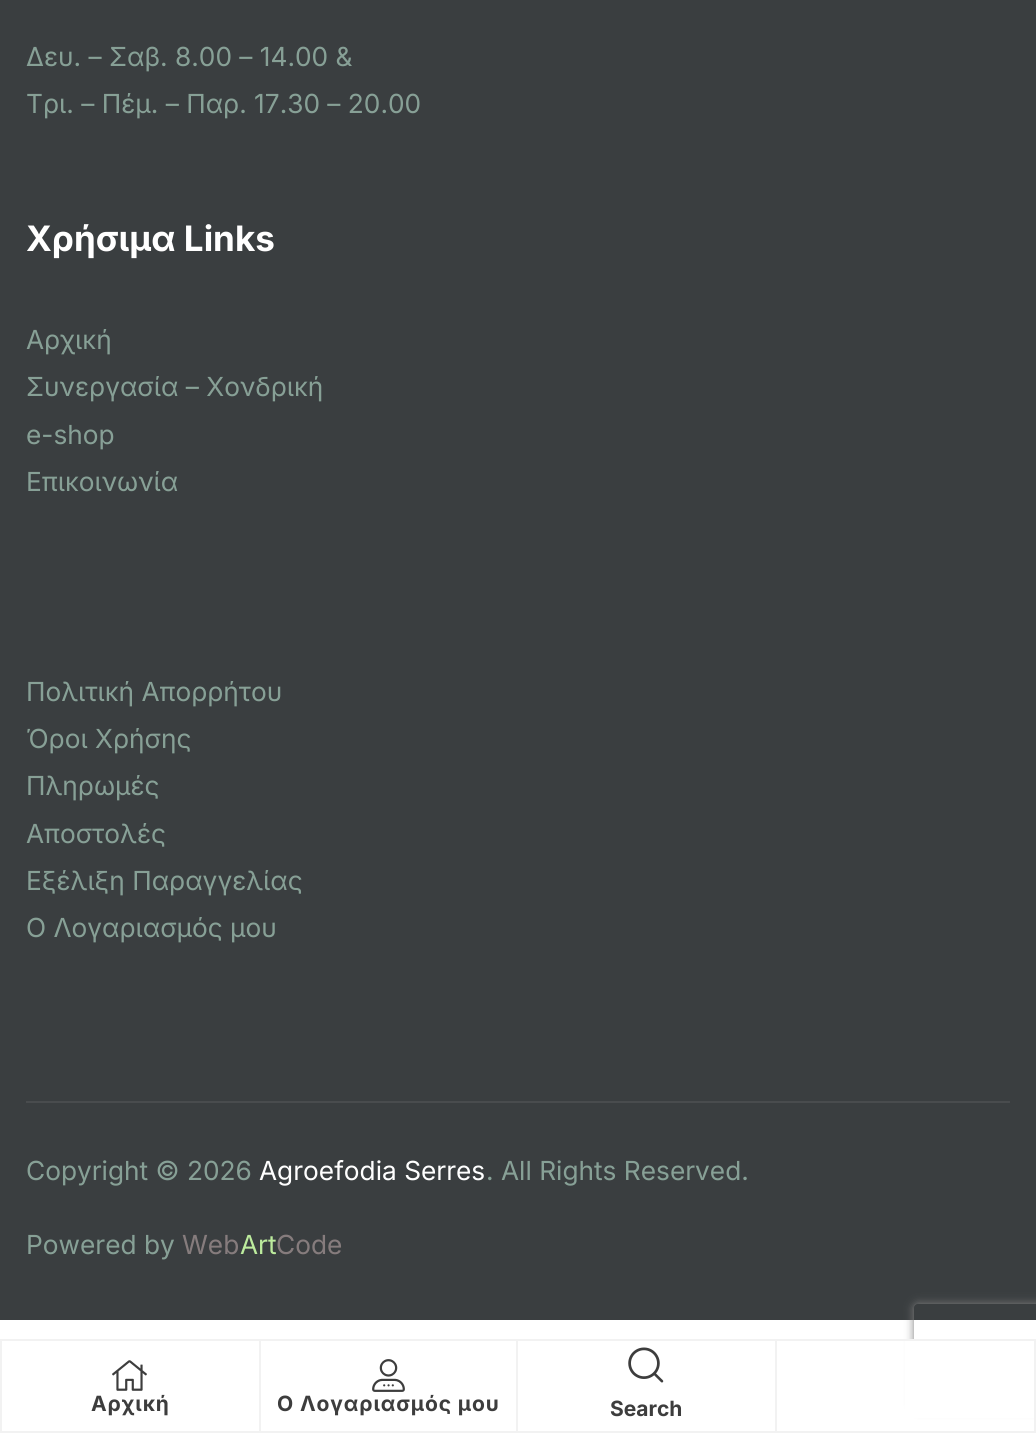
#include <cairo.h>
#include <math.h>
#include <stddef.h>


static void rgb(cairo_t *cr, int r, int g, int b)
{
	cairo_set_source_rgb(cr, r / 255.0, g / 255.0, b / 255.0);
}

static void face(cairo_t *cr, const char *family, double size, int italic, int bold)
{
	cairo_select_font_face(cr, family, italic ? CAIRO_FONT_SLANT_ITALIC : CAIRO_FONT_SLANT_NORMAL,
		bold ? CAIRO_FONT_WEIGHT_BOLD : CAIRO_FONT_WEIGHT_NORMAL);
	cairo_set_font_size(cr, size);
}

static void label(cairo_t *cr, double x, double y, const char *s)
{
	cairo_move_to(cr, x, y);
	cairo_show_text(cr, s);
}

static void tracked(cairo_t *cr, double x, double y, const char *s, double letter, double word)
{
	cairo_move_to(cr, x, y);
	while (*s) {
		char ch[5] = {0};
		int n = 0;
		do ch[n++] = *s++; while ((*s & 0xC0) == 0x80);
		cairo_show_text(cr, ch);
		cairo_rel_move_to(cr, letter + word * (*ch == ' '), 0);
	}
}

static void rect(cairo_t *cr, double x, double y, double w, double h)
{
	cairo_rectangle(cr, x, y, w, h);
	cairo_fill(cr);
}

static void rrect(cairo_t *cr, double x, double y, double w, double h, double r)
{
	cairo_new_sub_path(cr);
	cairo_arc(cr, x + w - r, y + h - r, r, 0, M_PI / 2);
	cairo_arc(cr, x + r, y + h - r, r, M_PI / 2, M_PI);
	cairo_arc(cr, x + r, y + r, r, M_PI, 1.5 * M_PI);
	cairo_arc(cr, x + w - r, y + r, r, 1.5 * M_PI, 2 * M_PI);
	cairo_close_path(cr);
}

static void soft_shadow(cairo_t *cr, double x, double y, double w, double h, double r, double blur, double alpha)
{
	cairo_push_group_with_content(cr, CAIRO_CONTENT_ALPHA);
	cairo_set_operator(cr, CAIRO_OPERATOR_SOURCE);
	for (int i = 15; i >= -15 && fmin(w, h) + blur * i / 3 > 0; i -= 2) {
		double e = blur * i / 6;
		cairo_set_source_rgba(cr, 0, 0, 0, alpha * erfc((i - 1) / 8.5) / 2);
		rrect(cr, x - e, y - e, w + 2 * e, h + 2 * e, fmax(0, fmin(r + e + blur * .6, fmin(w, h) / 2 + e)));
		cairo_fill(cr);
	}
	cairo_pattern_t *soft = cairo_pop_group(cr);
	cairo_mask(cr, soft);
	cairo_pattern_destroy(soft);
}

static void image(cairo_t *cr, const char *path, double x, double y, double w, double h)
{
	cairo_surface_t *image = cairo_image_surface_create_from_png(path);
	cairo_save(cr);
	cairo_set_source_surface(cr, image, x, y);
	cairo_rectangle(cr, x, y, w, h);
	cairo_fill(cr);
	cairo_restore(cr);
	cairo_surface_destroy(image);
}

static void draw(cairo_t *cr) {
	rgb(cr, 255, 255, 255);
	cairo_paint(cr);
	rgb(cr, 58, 62, 64);
	rect(cr, 0, 0, 1036, 1320);
	rgb(cr, 73, 76, 78);
	rect(cr, 26, 1101, 984, 2);
	face(cr, "Inter", 26.25, 0, 0);
	rgb(cr, 135, 160, 150);
	label(cr, 26, 66, "Δευ. – Σαβ. 8.00 – 14.00 &");
	label(cr, 26, 113, "Τρι. – Πέμ. – Παρ. 17.30 – 20.00");
	face(cr, "Inter", 35, 0, 1);
	rgb(cr, 255, 255, 255);
	label(cr, 26, 251, "Χρήσιμα Links");
	face(cr, "Inter", 26.25, 0, 0);
	rgb(cr, 135, 160, 150);
	label(cr, 26, 349, "Αρχική");
	label(cr, 26, 396, "Συνεργασία – Χονδρική");
	label(cr, 26, 444, "e-shop");
	label(cr, 26, 491, "Επικοινωνία");
	label(cr, 26, 701, "Πολιτική Απορρήτου");
	label(cr, 26, 748, "Όροι Χρήσης");
	label(cr, 26, 795, "Πληρωμές");
	label(cr, 26, 843, "Αποστολές");
	label(cr, 26, 890, "Εξέλιξη Παραγγελίας");
	label(cr, 26, 937, "O Λογαριασμός μου");
	label(cr, 26, 1180, "Copyright © 2026");
	rgb(cr, 255, 255, 255);
	label(cr, 259, 1180, "Agroefodia Serres");
	rgb(cr, 135, 160, 150);
	label(cr, 486, 1180, ". All Rights Reserved.");
	label(cr, 26, 1254, "Powered by");
	rgb(cr, 134, 124, 125);
	label(cr, 182, 1254, "Web");
	rgb(cr, 188, 235, 157);
	label(cr, 240, 1254, "Art");
	rgb(cr, 134, 124, 125);
	label(cr, 276, 1254, "Code");
	cairo_save(cr);
	cairo_set_fill_rule(cr, CAIRO_FILL_RULE_EVEN_ODD);
	cairo_new_path(cr);
	cairo_move_to(cr, 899, 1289);
	cairo_line_to(cr, 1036, 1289);
	cairo_line_to(cr, 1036, 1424);
	cairo_line_to(cr, 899, 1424);
	cairo_close_path(cr);
	cairo_move_to(cr, 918, 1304);
	cairo_line_to(cr, 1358, 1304);
	cairo_curve_to(cr, 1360, 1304, 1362, 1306, 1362, 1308);
	cairo_line_to(cr, 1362, 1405);
	cairo_curve_to(cr, 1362, 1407, 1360, 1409, 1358, 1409);
	cairo_line_to(cr, 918, 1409);
	cairo_curve_to(cr, 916, 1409, 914, 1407, 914, 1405);
	cairo_line_to(cr, 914, 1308);
	cairo_curve_to(cr, 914, 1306, 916, 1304, 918, 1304);
	cairo_close_path(cr);
	cairo_clip(cr);
	rgb(cr, 128, 128, 128);
	soft_shadow(cr, 914, 1304, 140, 105, 4, 4.5, 1);
	cairo_restore(cr);
	rgb(cr, 255, 255, 255);
	rect(cr, 905, 1341, 129, 77);
	cairo_rectangle(cr, 1, 1340, 1034, 92);
	rgb(cr, 242, 242, 242);
	cairo_stroke(cr);
	rect(cr, 259, 1341, 2, 91);
	image(cr, "image0.png", 112, 1360, 35, 31);
	face(cr, "Inter", 21, 0, 1);
	rgb(cr, 61, 61, 61);
	tracked(cr, 91, 1411, "Αρχική", 0.9, 0);
	rgb(cr, 242, 242, 242);
	rect(cr, 516, 1341, 2, 91);
	image(cr, "image1.png", 372, 1359, 33, 33);
	rgb(cr, 61, 61, 61);
	tracked(cr, 277, 1411, "Ο Λογαριασμός μου", 0.9, 0);
	rgb(cr, 242, 242, 242);
	rect(cr, 775, 1341, 2, 91);
	image(cr, "image2.png", 628, 1347, 36, 36);
	rgb(cr, 61, 61, 61);
	label(cr, 610, 1416, "Search");
}

int main(void) {
	cairo_surface_t *surface = cairo_image_surface_create(CAIRO_FORMAT_RGB24, 1036, 1433);
	cairo_t *cr = cairo_create(surface);
	cairo_font_options_t *options = cairo_font_options_create();
	cairo_font_options_set_hint_metrics(options, CAIRO_HINT_METRICS_OFF);
	cairo_font_options_set_hint_style(options, CAIRO_HINT_STYLE_NONE);
	cairo_set_font_options(cr, options);
	cairo_set_miter_limit(cr, 4);
	draw(cr);
	cairo_surface_write_to_png(surface, "render.png");
	cairo_font_options_destroy(options);
	cairo_destroy(cr);
	cairo_surface_destroy(surface);
	return 0;
}
